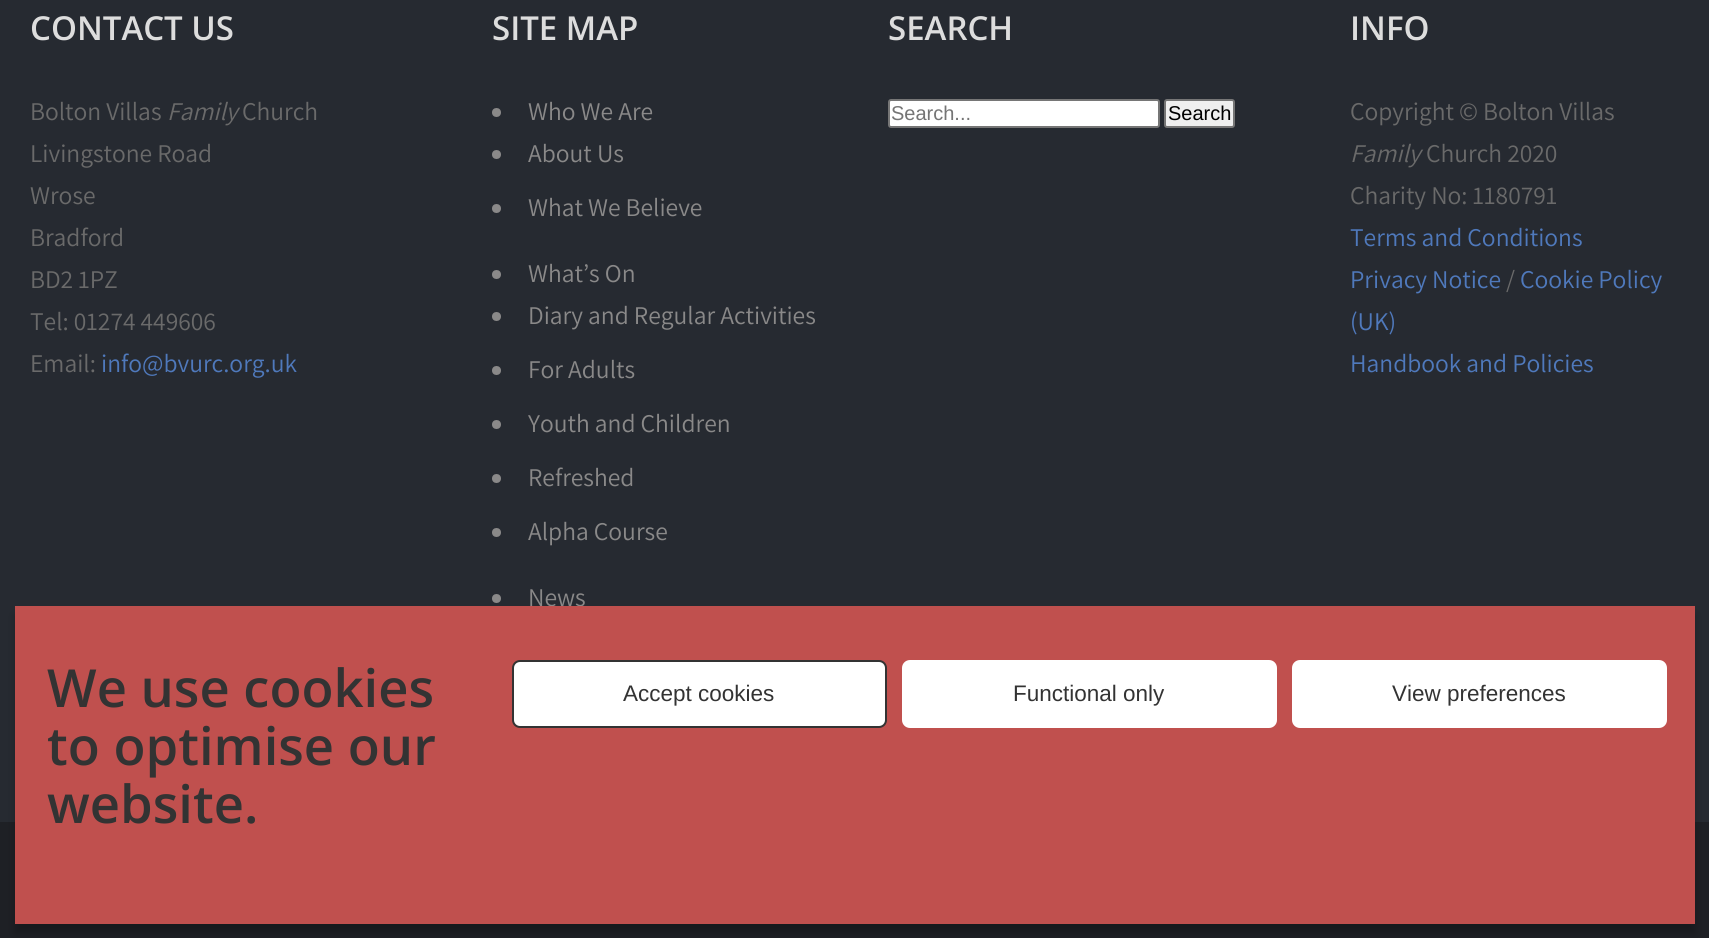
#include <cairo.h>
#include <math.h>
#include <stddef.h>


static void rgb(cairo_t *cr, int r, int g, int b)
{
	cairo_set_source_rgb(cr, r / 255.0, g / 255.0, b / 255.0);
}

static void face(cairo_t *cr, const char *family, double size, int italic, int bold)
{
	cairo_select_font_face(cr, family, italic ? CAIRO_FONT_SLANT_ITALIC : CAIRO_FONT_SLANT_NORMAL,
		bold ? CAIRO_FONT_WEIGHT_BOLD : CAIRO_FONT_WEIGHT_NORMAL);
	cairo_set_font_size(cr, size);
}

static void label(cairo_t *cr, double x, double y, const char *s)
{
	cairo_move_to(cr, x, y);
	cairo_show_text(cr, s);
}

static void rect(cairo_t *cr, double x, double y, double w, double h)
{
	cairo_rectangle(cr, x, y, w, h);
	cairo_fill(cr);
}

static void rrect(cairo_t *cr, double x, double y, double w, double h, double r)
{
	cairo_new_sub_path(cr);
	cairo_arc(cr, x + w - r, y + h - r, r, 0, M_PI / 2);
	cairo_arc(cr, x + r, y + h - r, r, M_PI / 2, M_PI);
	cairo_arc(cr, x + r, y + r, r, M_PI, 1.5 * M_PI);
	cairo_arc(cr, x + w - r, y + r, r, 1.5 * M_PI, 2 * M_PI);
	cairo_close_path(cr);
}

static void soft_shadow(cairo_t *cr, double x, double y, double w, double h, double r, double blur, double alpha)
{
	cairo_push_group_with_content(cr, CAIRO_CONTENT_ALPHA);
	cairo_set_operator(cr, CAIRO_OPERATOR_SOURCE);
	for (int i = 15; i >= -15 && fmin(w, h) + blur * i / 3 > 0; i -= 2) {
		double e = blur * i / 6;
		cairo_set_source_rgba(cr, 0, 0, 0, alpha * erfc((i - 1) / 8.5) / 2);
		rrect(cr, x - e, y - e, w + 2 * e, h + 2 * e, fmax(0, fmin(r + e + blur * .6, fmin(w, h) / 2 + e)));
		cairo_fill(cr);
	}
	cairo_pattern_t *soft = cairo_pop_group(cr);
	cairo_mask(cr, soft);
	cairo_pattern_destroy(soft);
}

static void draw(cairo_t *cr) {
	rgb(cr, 38, 42, 49);
	cairo_paint(cr);
	face(cr, "Open Sans SemiBold", 33, 0, 0);
	rgb(cr, 221, 221, 221);
	label(cr, 30, 40, "CONTACT US");
	face(cr, "Assistant", 25.5, 0, 0);
	rgb(cr, 106, 106, 106);
	label(cr, 30, 120, "Bolton Villas");
	face(cr, "Assistant", 25.5, 1, 0);
	label(cr, 167, 120, "Family");
	face(cr, "Assistant", 25.5, 0, 0);
	label(cr, 242, 120, "Church");
	label(cr, 30, 162, "Livingstone Road");
	label(cr, 30, 204, "Wrose");
	label(cr, 30, 246, "Bradford");
	label(cr, 30, 288, "BD2 1PZ");
	label(cr, 30, 330, "Tel: 01274 449606");
	label(cr, 30, 372, "Email:");
	rgb(cr, 79, 121, 188);
	label(cr, 101, 372, "info@bvurc.org.uk");
	face(cr, "Open Sans SemiBold", 33, 0, 0);
	rgb(cr, 221, 221, 221);
	label(cr, 492, 40, "SITE MAP");
	rgb(cr, 138, 137, 137);
	cairo_new_path(cr);
	cairo_arc(cr, 496.5, 112.5, 4.5, 0, 2 * M_PI);
	cairo_fill(cr);
	face(cr, "Assistant", 25.5, 0, 0);
	label(cr, 528, 120, "Who We Are");
	cairo_new_path(cr);
	cairo_arc(cr, 496.5, 154.5, 4.5, 0, 2 * M_PI);
	cairo_fill(cr);
	label(cr, 528, 162, "About Us");
	cairo_new_path(cr);
	cairo_arc(cr, 496.5, 208.5, 4.5, 0, 2 * M_PI);
	cairo_fill(cr);
	label(cr, 528, 216, "What We Believe");
	cairo_new_path(cr);
	cairo_arc(cr, 496.5, 274.5, 4.5, 0, 2 * M_PI);
	cairo_fill(cr);
	label(cr, 528, 282, "What’s On");
	cairo_new_path(cr);
	cairo_arc(cr, 496.5, 316.5, 4.5, 0, 2 * M_PI);
	cairo_fill(cr);
	label(cr, 528, 324, "Diary and Regular Activities");
	cairo_new_path(cr);
	cairo_arc(cr, 496.5, 370.5, 4.5, 0, 2 * M_PI);
	cairo_fill(cr);
	label(cr, 528, 378, "For Adults");
	cairo_new_path(cr);
	cairo_arc(cr, 496.5, 424.5, 4.5, 0, 2 * M_PI);
	cairo_fill(cr);
	label(cr, 528, 432, "Youth and Children");
	cairo_new_path(cr);
	cairo_arc(cr, 496.5, 478.5, 4.5, 0, 2 * M_PI);
	cairo_fill(cr);
	label(cr, 528, 486, "Refreshed");
	cairo_new_path(cr);
	cairo_arc(cr, 496.5, 532.5, 4.5, 0, 2 * M_PI);
	cairo_fill(cr);
	label(cr, 528, 540, "Alpha Course");
	cairo_new_path(cr);
	cairo_arc(cr, 496.5, 598.5, 4.5, 0, 2 * M_PI);
	cairo_fill(cr);
	label(cr, 528, 606, "News");
	face(cr, "Open Sans SemiBold", 33, 0, 0);
	rgb(cr, 221, 221, 221);
	label(cr, 888, 40, "SEARCH");
	rgb(cr, 255, 255, 255);
	rrect(cr, 889, 100, 270, 27, 2);
	cairo_fill_preserve(cr);
	rgb(cr, 118, 118, 118);
	cairo_stroke(cr);
	face(cr, "Liberation Sans", 20, 0, 0);
	rgb(cr, 117, 117, 117);
	label(cr, 891, 120, "Search...");
	rgb(cr, 239, 239, 239);
	rrect(cr, 1165, 100, 69, 27, 2);
	cairo_fill_preserve(cr);
	rgb(cr, 118, 118, 118);
	cairo_stroke(cr);
	rgb(cr, 0, 0, 0);
	label(cr, 1168, 120, "Search");
	face(cr, "Open Sans SemiBold", 33, 0, 0);
	rgb(cr, 221, 221, 221);
	label(cr, 1350, 40, "INFO");
	face(cr, "Assistant", 25.5, 0, 0);
	rgb(cr, 106, 106, 106);
	label(cr, 1350, 120, "Copyright © Bolton Villas");
	face(cr, "Assistant", 25.5, 1, 0);
	label(cr, 1350, 162, "Family");
	face(cr, "Assistant", 25.5, 0, 0);
	label(cr, 1426, 162, "Church 2020");
	label(cr, 1350, 204, "Charity No: 1180791");
	rgb(cr, 79, 121, 188);
	label(cr, 1350, 246, "Terms and Conditions");
	label(cr, 1350, 288, "Privacy Notice");
	rgb(cr, 106, 106, 106);
	label(cr, 1506, 288, "/");
	rgb(cr, 79, 121, 188);
	label(cr, 1520, 288, "Cookie Policy");
	label(cr, 1350, 330, "(UK)");
	label(cr, 1350, 372, "Handbook and Policies");
	rgb(cr, 30, 32, 37);
	rect(cr, 0, 822, 1709, 116);
	rgb(cr, 0, 0, 0);
	soft_shadow(cr, 15, 615, 1680, 318, 0, 4.5, 0.23);
	rgb(cr, 192, 80, 78);
	rect(cr, 15, 606, 1680, 318);
	face(cr, "Open Sans SemiBold", 52.5, 0, 0);
	rgb(cr, 51, 51, 51);
	label(cr, 47, 707, "We use cookies");
	label(cr, 47, 765, "to optimise our");
	label(cr, 47, 823, "website.");
	rgb(cr, 255, 255, 255);
	rrect(cr, 513, 661, 373, 66, 7);
	cairo_fill_preserve(cr);
	rgb(cr, 51, 51, 51);
	cairo_stroke(cr);
	face(cr, "Liberation Sans", 22.5, 0, 0);
	label(cr, 623, 701, "Accept cookies");
	rgb(cr, 255, 255, 255);
	rrect(cr, 903, 661, 373, 66, 7);
	cairo_fill_preserve(cr);
	cairo_stroke(cr);
	rgb(cr, 51, 51, 51);
	label(cr, 1013, 701, "Functional only");
	rgb(cr, 255, 255, 255);
	rrect(cr, 1293, 661, 373, 66, 7);
	cairo_fill_preserve(cr);
	cairo_stroke(cr);
	rgb(cr, 51, 51, 51);
	label(cr, 1392, 701, "View preferences");
}

int main(void) {
	cairo_surface_t *surface = cairo_image_surface_create(CAIRO_FORMAT_RGB24, 1709, 938);
	cairo_t *cr = cairo_create(surface);
	cairo_font_options_t *options = cairo_font_options_create();
	cairo_font_options_set_hint_metrics(options, CAIRO_HINT_METRICS_OFF);
	cairo_font_options_set_hint_style(options, CAIRO_HINT_STYLE_NONE);
	cairo_set_font_options(cr, options);
	cairo_set_miter_limit(cr, 4);
	draw(cr);
	cairo_surface_write_to_png(surface, "render.png");
	cairo_font_options_destroy(options);
	cairo_destroy(cr);
	cairo_surface_destroy(surface);
	return 0;
}
